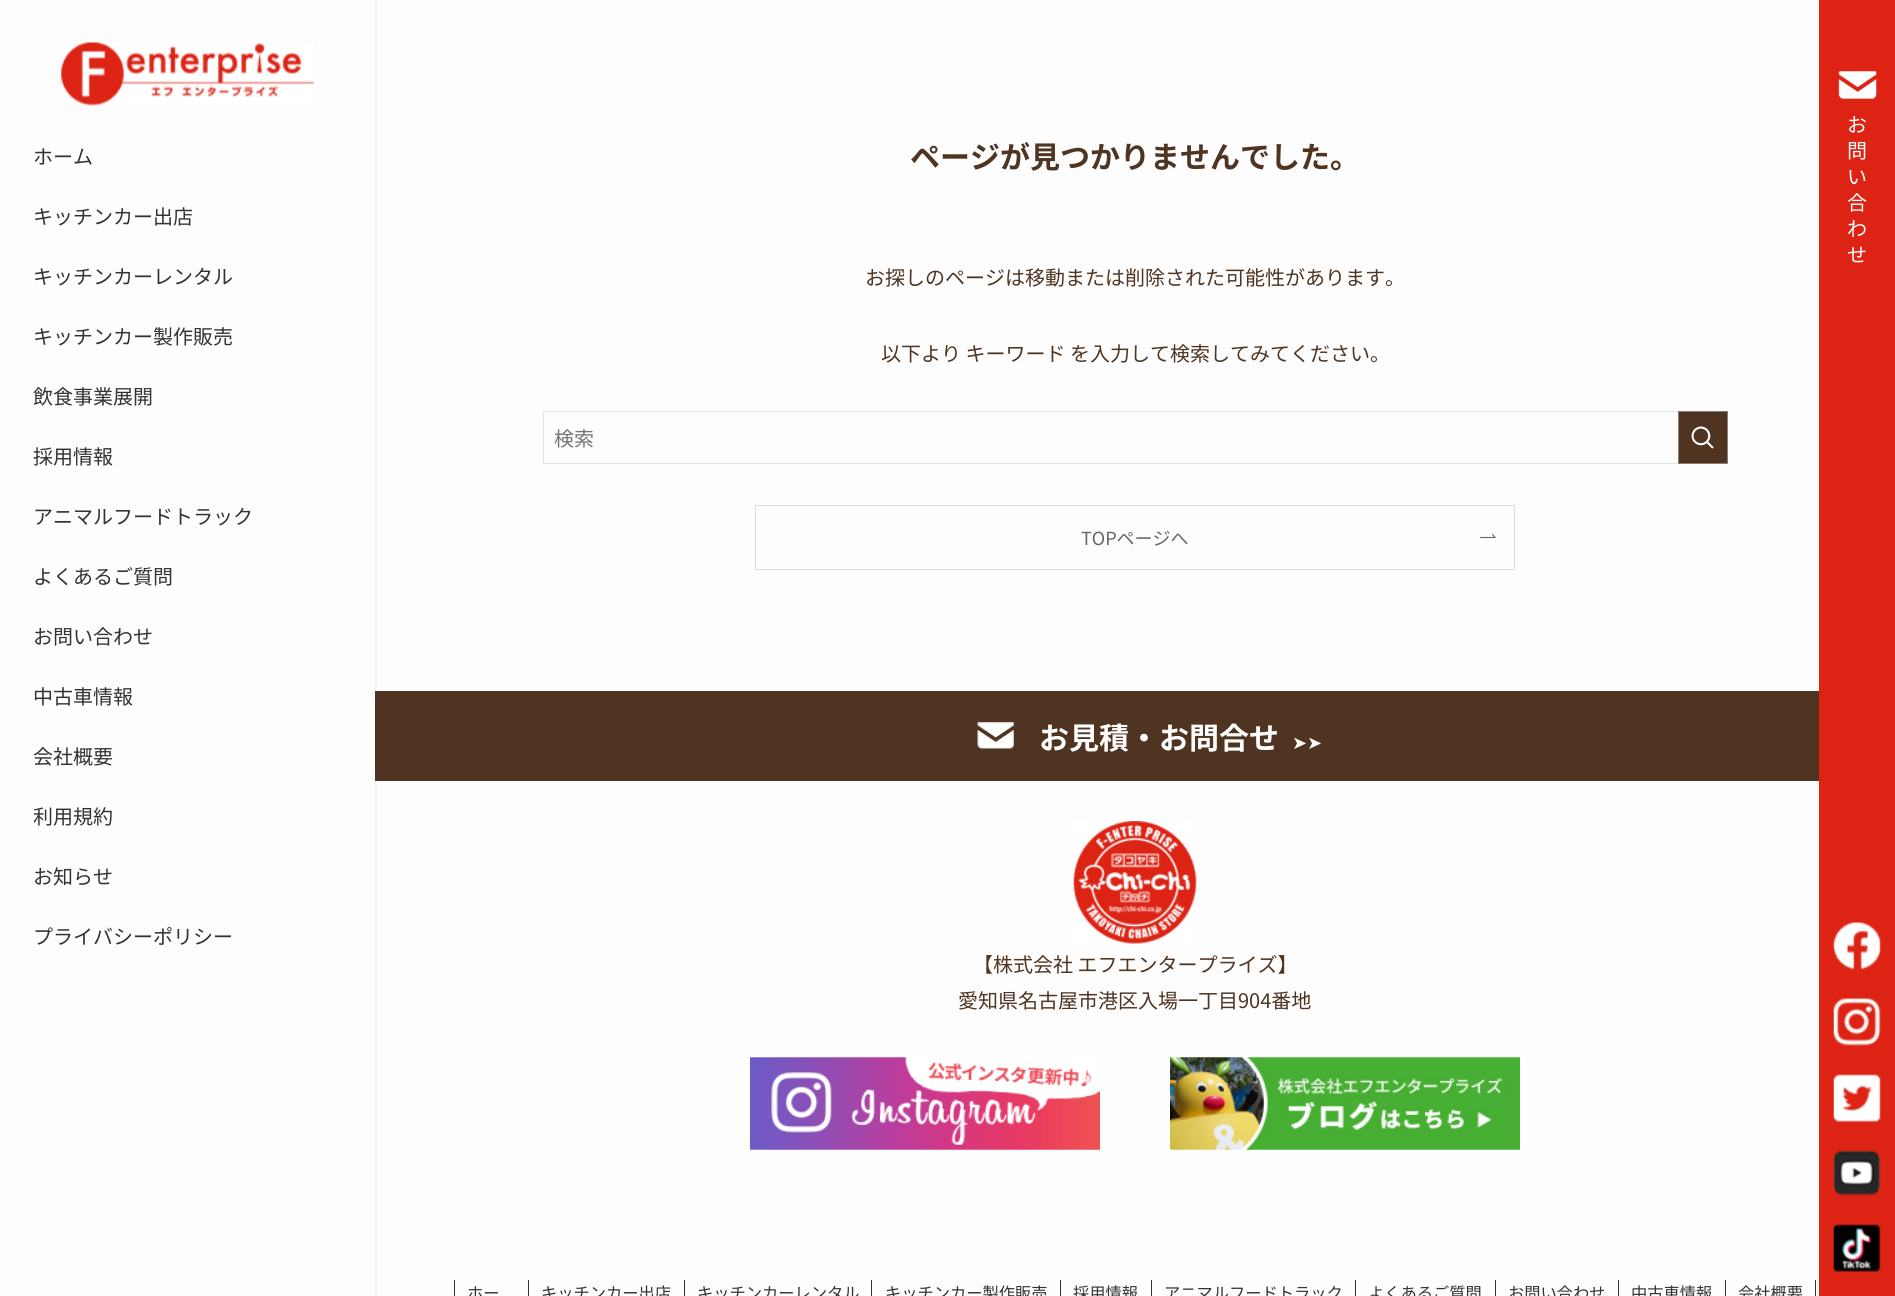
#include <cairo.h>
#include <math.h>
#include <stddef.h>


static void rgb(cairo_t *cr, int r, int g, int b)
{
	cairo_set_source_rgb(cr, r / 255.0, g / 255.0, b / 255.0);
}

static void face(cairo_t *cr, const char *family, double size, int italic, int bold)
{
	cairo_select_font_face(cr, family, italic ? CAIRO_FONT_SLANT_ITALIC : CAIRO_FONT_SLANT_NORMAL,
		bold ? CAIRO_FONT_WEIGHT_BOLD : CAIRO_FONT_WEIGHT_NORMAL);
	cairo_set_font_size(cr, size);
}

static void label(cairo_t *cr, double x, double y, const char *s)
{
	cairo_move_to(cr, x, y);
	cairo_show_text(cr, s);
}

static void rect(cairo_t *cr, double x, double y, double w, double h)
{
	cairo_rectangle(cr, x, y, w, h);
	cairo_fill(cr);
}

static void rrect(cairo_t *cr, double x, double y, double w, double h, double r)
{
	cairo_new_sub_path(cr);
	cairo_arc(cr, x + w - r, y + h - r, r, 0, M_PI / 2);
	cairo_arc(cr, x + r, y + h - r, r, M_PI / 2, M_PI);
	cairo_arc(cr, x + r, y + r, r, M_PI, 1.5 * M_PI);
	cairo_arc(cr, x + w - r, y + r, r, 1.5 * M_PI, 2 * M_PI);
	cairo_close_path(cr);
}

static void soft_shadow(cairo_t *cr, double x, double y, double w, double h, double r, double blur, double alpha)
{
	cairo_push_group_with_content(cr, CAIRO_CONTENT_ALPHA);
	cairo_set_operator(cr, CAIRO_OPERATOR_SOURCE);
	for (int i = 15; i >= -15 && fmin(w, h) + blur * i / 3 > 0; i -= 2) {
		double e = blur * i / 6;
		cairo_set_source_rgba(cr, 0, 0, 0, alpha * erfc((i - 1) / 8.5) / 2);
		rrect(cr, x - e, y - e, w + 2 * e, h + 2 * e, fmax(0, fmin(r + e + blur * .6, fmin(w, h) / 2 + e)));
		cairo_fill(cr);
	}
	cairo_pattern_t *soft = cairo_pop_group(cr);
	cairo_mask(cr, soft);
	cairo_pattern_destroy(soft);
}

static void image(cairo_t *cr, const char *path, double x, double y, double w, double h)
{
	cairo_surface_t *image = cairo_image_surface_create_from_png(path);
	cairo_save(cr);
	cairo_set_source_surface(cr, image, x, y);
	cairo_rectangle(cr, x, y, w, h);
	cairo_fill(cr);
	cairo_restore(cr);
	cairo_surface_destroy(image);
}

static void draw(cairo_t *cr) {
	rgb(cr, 253, 253, 253);
	cairo_paint(cr);
	rgb(cr, 220, 35, 20);
	rect(cr, 1819, 0, 76, 1296);
	image(cr, "image0.png", 1838, 71, 39, 28);
	face(cr, "Noto Sans JP", 20, 0, 0);
	rgb(cr, 255, 255, 255);
	label(cr, 1847, 132, "お");
	label(cr, 1847, 158, "問");
	label(cr, 1847, 184, "い");
	label(cr, 1847, 210, "合");
	label(cr, 1847, 236, "わ");
	label(cr, 1847, 262, "せ");
	image(cr, "image1.png", 1833, 922, 48, 48);
	image(cr, "image2.png", 1833, 998, 48, 48);
	image(cr, "image3.png", 1833, 1074, 48, 48);
	image(cr, "image4.png", 1833, 1150, 48, 46);
	image(cr, "image5.png", 1833, 1224, 48, 48);
	rgb(cr, 79, 53, 33);
	rect(cr, 375, 691, 1444, 90);
	image(cr, "image6.png", 977, 722, 37, 27);
	face(cr, "Noto Sans JP", 30, 0, 1);
	rgb(cr, 255, 255, 255);
	label(cr, 1039, 749, "お見積・お問合せ");
	face(cr, "DejaVu Sans", 18, 0, 0);
	label(cr, 1292, 749, "➤➤");
	image(cr, "image7.png", 1073, 821, 124, 124);
	face(cr, "Noto Sans JP", 20, 0, 0);
	rgb(cr, 79, 53, 33);
	label(cr, 973, 972, "【株式会社 エフエンタープライズ】");
	label(cr, 958, 1008, "愛知県名古屋市港区入場一丁目904番地");
	image(cr, "image8.png", 750, 1057, 350, 93);
	image(cr, "image9.png", 1170, 1057, 350, 93);
	cairo_save(cr);
	cairo_rectangle(cr, 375, 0, 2, 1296);
	cairo_clip(cr);
	rgb(cr, 0, 0, 0);
	soft_shadow(cr, 0, 1, 375, 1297, 0, 2.5, 0.12);
	cairo_restore(cr);
	image(cr, "image10.png", 61, 42, 253, 64);
	rgb(cr, 51, 51, 51);
	label(cr, 33, 164, "ホーム");
	label(cr, 33, 224, "キッチンカー出店");
	label(cr, 33, 284, "キッチンカーレンタル");
	label(cr, 33, 344, "キッチンカー製作販売");
	label(cr, 33, 404, "飲食事業展開");
	label(cr, 33, 464, "採用情報");
	label(cr, 33, 524, "アニマルフードトラック");
	label(cr, 33, 584, "よくあるご質問");
	label(cr, 33, 644, "お問い合わせ");
	label(cr, 33, 704, "中古車情報");
	label(cr, 33, 764, "会社概要");
	label(cr, 33, 824, "利用規約");
	label(cr, 33, 884, "お知らせ");
	label(cr, 33, 944, "プライバシーポリシー");
	face(cr, "Noto Sans JP", 30, 0, 1);
	rgb(cr, 79, 53, 33);
	label(cr, 910, 168, "ページが見つかりませんでした。");
	face(cr, "Noto Sans JP", 20, 0, 0);
	label(cr, 865, 285, "お探しのページは移動または削除された可能性があります。");
	label(cr, 881, 361, "以下より キーワード を入力して検索してみてください。");
	cairo_rectangle(cr, 543.5, 411.5, 1184, 52);
	rgb(cr, 227, 227, 227);
	cairo_set_line_width(cr, 1);
	cairo_stroke(cr);
	rgb(cr, 117, 117, 117);
	label(cr, 554, 446, "検索");
	rgb(cr, 79, 53, 33);
	cairo_rectangle(cr, 1678.5, 411.5, 49, 52);
	cairo_fill_preserve(cr);
	rgb(cr, 139, 126, 116);
	cairo_stroke(cr);
	image(cr, "image11.png", 1691, 426, 23, 23);
	cairo_rectangle(cr, 755.5, 505.5, 759, 64);
	rgb(cr, 220, 220, 220);
	cairo_stroke(cr);
	face(cr, "Noto Sans JP", 18, 0, 0);
	rgb(cr, 102, 102, 102);
	label(cr, 1081, 545, "TOPページへ");
	image(cr, "image12.png", 1480, 533, 16, 6);
	rgb(cr, 51, 51, 51);
	rect(cr, 528, 1280, 1, 16);
	rect(cr, 454, 1280, 1, 16);
	face(cr, "Noto Sans JP", 16.25, 0, 0);
	label(cr, 467, 1299, "ホー");
	rect(cr, 684, 1280, 1, 16);
	label(cr, 541, 1299, "キッチンカー出店");
	rect(cr, 871, 1280, 1, 16);
	label(cr, 697, 1299, "キッチンカーレンタル");
	rect(cr, 1060, 1280, 1, 16);
	label(cr, 885, 1299, "キッチンカー製作販売");
	rect(cr, 1151, 1280, 1, 16);
	label(cr, 1073, 1299, "採用情報");
	rect(cr, 1355, 1280, 1, 16);
	label(cr, 1164, 1299, "アニマルフードトラック");
	rect(cr, 1495, 1280, 1, 16);
	label(cr, 1368, 1299, "よくあるご質問");
	rect(cr, 1618, 1280, 1, 16);
	label(cr, 1508, 1299, "お問い合わせ");
	rect(cr, 1725, 1280, 1, 16);
	label(cr, 1631, 1299, "中古車情報");
	rect(cr, 1815, 1280, 1, 16);
	label(cr, 1738, 1299, "会社概要");
}

int main(void) {
	cairo_surface_t *surface = cairo_image_surface_create(CAIRO_FORMAT_RGB24, 1895, 1296);
	cairo_t *cr = cairo_create(surface);
	cairo_font_options_t *options = cairo_font_options_create();
	cairo_font_options_set_hint_metrics(options, CAIRO_HINT_METRICS_OFF);
	cairo_font_options_set_hint_style(options, CAIRO_HINT_STYLE_NONE);
	cairo_set_font_options(cr, options);
	cairo_set_miter_limit(cr, 4);
	draw(cr);
	cairo_surface_write_to_png(surface, "render.png");
	cairo_font_options_destroy(options);
	cairo_destroy(cr);
	cairo_surface_destroy(surface);
	return 0;
}
